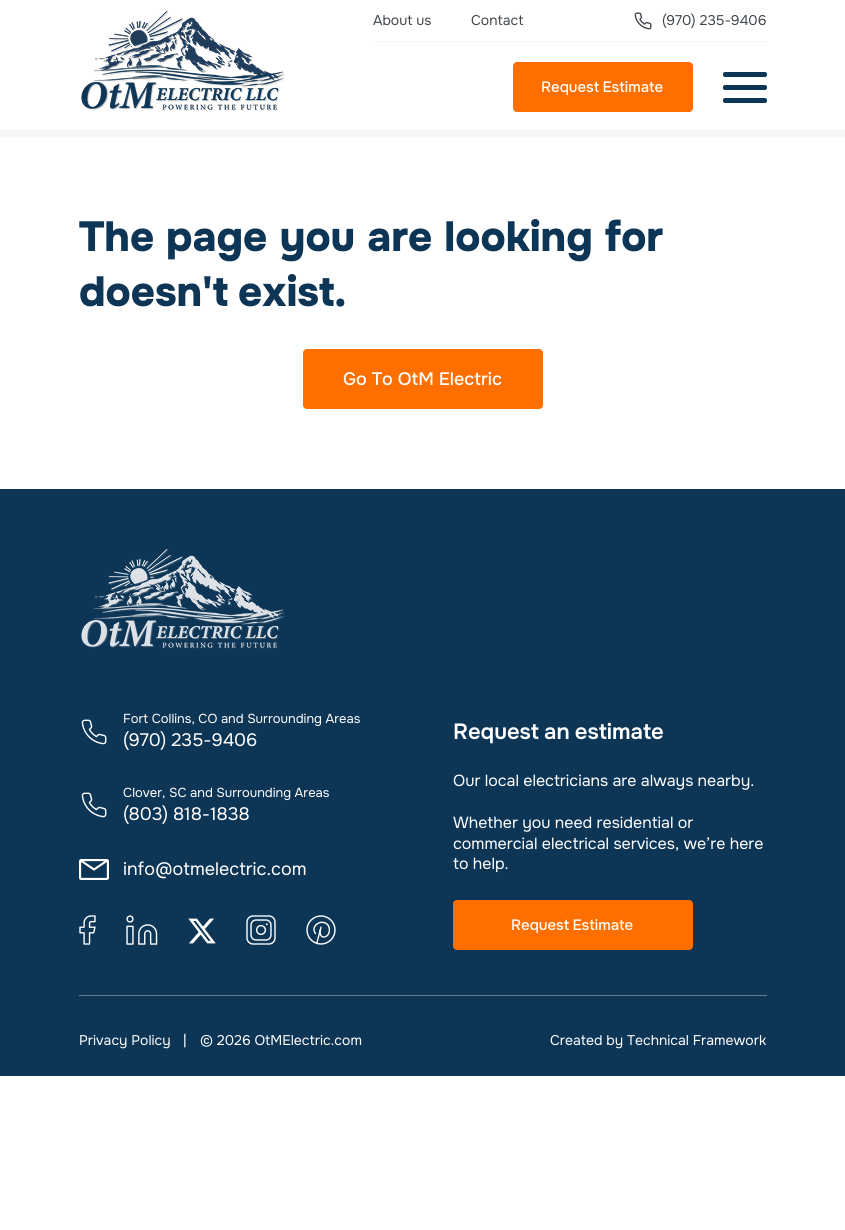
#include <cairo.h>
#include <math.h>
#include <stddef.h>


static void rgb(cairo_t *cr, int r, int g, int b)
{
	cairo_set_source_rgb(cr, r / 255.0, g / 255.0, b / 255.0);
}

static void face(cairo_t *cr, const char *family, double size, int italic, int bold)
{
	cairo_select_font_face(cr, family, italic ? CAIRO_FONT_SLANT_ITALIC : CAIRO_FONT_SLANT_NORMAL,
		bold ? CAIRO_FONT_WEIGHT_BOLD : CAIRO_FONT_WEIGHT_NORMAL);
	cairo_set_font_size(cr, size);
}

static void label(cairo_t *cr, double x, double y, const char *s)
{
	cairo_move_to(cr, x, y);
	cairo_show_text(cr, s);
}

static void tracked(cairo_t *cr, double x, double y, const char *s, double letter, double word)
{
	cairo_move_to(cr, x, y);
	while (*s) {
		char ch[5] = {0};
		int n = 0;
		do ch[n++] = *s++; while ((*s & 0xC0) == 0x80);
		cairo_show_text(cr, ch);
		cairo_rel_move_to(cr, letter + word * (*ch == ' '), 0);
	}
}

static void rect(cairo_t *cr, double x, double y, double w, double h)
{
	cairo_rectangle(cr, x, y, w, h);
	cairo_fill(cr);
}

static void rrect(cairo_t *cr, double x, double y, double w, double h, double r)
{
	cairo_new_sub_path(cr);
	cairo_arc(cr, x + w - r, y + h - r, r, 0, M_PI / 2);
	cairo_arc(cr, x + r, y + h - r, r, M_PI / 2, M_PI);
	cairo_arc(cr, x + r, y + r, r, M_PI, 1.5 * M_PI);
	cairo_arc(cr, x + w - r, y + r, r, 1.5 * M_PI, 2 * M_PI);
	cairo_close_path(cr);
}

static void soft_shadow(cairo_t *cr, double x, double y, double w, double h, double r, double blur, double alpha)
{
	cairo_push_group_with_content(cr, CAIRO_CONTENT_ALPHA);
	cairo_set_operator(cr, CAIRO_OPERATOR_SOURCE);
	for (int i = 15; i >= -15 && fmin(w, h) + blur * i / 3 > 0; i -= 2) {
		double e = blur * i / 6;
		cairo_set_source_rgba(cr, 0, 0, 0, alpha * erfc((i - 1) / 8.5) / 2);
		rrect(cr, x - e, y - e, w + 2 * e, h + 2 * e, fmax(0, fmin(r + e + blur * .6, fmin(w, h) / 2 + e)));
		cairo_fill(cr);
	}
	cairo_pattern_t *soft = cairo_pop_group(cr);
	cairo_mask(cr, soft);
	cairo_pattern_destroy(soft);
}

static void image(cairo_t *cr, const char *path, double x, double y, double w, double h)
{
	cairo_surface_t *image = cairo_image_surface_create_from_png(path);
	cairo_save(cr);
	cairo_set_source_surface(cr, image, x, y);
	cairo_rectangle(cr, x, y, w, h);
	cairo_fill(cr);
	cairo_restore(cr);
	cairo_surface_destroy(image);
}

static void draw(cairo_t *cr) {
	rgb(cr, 255, 255, 255);
	cairo_paint(cr);
	cairo_save(cr);
	cairo_rectangle(cr, 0, 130, 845, 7);
	cairo_clip(cr);
	rgb(cr, 0, 0, 0);
	soft_shadow(cr, -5, -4, 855, 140, 0, 5, 0.05);
	cairo_restore(cr);
	image(cr, "image0.png", 81, 11, 204, 100);
	face(cr, "Onest", 14, 0, 0);
	rgb(cr, 66, 72, 77);
	label(cr, 373, 25, "About us");
	label(cr, 471, 25, "Contact");
	image(cr, "image1.png", 634, 12, 18, 18);
	label(cr, 662, 25, "(970) 235-9406");
	rgb(cr, 243, 243, 243);
	rect(cr, 373, 41, 394, 1);
	rgb(cr, 255, 111, 0);
	rrect(cr, 513.5, 62.5, 179, 49, 3.5);
	cairo_fill_preserve(cr);
	cairo_set_line_width(cr, 1);
	cairo_stroke(cr);
	face(cr, "Onest Medium", 15, 0, 0);
	rgb(cr, 255, 255, 255);
	tracked(cr, 541, 92, "Request Estimate", 0, -1);
	rgb(cr, 13, 53, 86);
	rrect(cr, 723, 72, 44, 5, 2);
	cairo_fill(cr);
	rrect(cr, 723, 85, 44, 5, 2);
	cairo_fill(cr);
	rrect(cr, 723, 98, 44, 5, 2);
	cairo_fill(cr);
	face(cr, "Onest ExtraBold", 42, 0, 0);
	label(cr, 79, 251, "The page you are looking for");
	tracked(cr, 79, 306, "doesn't exist.", 0, -2);
	rgb(cr, 255, 111, 0);
	rrect(cr, 303.5, 349.5, 239, 59, 3.5);
	cairo_fill_preserve(cr);
	cairo_stroke(cr);
	face(cr, "Onest Medium", 18, 0, 0);
	rgb(cr, 255, 255, 255);
	label(cr, 343, 385, "Go To OtM Electric");
	rgb(cr, 13, 53, 86);
	rect(cr, 0, 489, 845, 587);
	image(cr, "image2.png", 81, 549, 204, 100);
	image(cr, "image3.png", 81, 719, 26, 26);
	face(cr, "Onest", 13, 0, 0);
	rgb(cr, 255, 255, 255);
	label(cr, 123, 723, "Fort Collins, CO and Surrounding Areas");
	face(cr, "Onest", 18, 0, 0);
	label(cr, 123, 746, "(970) 235-9406");
	image(cr, "image3.png", 81, 792, 26, 26);
	face(cr, "Onest", 13, 0, 0);
	label(cr, 123, 797, "Clover, SC and Surrounding Areas");
	face(cr, "Onest", 18, 0, 0);
	label(cr, 123, 820, "(803) 818-1838");
	image(cr, "image4.png", 79, 859, 30, 21);
	label(cr, 123, 875, "info@otmelectric.com");
	image(cr, "image5.png", 79, 915, 17, 30);
	image(cr, "image6.png", 126, 915, 32, 30);
	image(cr, "image7.png", 188, 918, 28, 26);
	image(cr, "image8.png", 246, 915, 30, 30);
	image(cr, "image9.png", 306, 915, 30, 30);
	face(cr, "Onest SemiBold", 22, 0, 0);
	tracked(cr, 453, 739, "Request an estimate", 0, -1);
	face(cr, "Onest", 16, 0, 0);
	label(cr, 453, 786, "Our local electricians are always nearby.");
	label(cr, 453, 828, "Whether you need residential or");
	label(cr, 453, 849, "commercial electrical services, we’re here");
	label(cr, 453, 869, "to help.");
	rgb(cr, 255, 111, 0);
	rrect(cr, 453.5, 900.5, 239, 49, 3.5);
	cairo_fill_preserve(cr);
	cairo_stroke(cr);
	face(cr, "Onest Medium", 15, 0, 0);
	rgb(cr, 255, 255, 255);
	tracked(cr, 511, 930, "Request Estimate", 0, -1);
	rgb(cr, 102, 126, 146);
	rect(cr, 79, 995, 688, 1);
	face(cr, "Onest", 14, 0, 0);
	rgb(cr, 255, 255, 255);
	label(cr, 79, 1045, "Privacy Policy");
	label(cr, 183, 1045, "|");
	label(cr, 200, 1045, "© 2026 OtMElectric.com");
	label(cr, 550, 1045, "Created by");
	label(cr, 627, 1045, "Technical Framework");
}

int main(void) {
	cairo_surface_t *surface = cairo_image_surface_create(CAIRO_FORMAT_RGB24, 845, 1230);
	cairo_t *cr = cairo_create(surface);
	cairo_font_options_t *options = cairo_font_options_create();
	cairo_font_options_set_hint_metrics(options, CAIRO_HINT_METRICS_OFF);
	cairo_font_options_set_hint_style(options, CAIRO_HINT_STYLE_NONE);
	cairo_set_font_options(cr, options);
	cairo_set_miter_limit(cr, 4);
	draw(cr);
	cairo_surface_write_to_png(surface, "render.png");
	cairo_font_options_destroy(options);
	cairo_destroy(cr);
	cairo_surface_destroy(surface);
	return 0;
}
